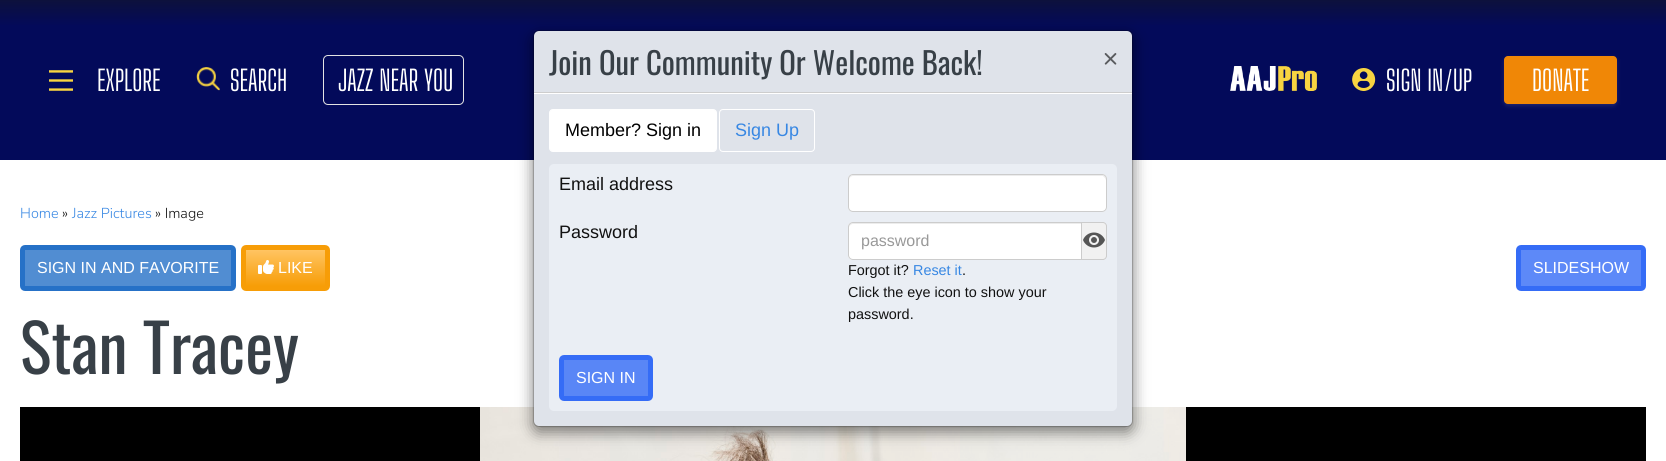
#include <cairo.h>
#include <math.h>
#include <stddef.h>


static void rgb(cairo_t *cr, int r, int g, int b)
{
	cairo_set_source_rgb(cr, r / 255.0, g / 255.0, b / 255.0);
}

static void face(cairo_t *cr, const char *family, double size, int italic, int bold)
{
	cairo_select_font_face(cr, family, italic ? CAIRO_FONT_SLANT_ITALIC : CAIRO_FONT_SLANT_NORMAL,
		bold ? CAIRO_FONT_WEIGHT_BOLD : CAIRO_FONT_WEIGHT_NORMAL);
	cairo_set_font_size(cr, size);
}

static void label(cairo_t *cr, double x, double y, const char *s)
{
	cairo_move_to(cr, x, y);
	cairo_show_text(cr, s);
}

static void rect(cairo_t *cr, double x, double y, double w, double h)
{
	cairo_rectangle(cr, x, y, w, h);
	cairo_fill(cr);
}

static void rrect(cairo_t *cr, double x, double y, double w, double h, double r)
{
	cairo_new_sub_path(cr);
	cairo_arc(cr, x + w - r, y + h - r, r, 0, M_PI / 2);
	cairo_arc(cr, x + r, y + h - r, r, M_PI / 2, M_PI);
	cairo_arc(cr, x + r, y + r, r, M_PI, 1.5 * M_PI);
	cairo_arc(cr, x + w - r, y + r, r, 1.5 * M_PI, 2 * M_PI);
	cairo_close_path(cr);
}

static void soft_shadow(cairo_t *cr, double x, double y, double w, double h, double r, double blur, double alpha)
{
	cairo_push_group_with_content(cr, CAIRO_CONTENT_ALPHA);
	cairo_set_operator(cr, CAIRO_OPERATOR_SOURCE);
	for (int i = 15; i >= -15 && fmin(w, h) + blur * i / 3 > 0; i -= 2) {
		double e = blur * i / 6;
		cairo_set_source_rgba(cr, 0, 0, 0, alpha * erfc((i - 1) / 8.5) / 2);
		rrect(cr, x - e, y - e, w + 2 * e, h + 2 * e, fmax(0, fmin(r + e + blur * .6, fmin(w, h) / 2 + e)));
		cairo_fill(cr);
	}
	cairo_pattern_t *soft = cairo_pop_group(cr);
	cairo_mask(cr, soft);
	cairo_pattern_destroy(soft);
}

static void image(cairo_t *cr, const char *path, double x, double y, double w, double h)
{
	cairo_surface_t *image = cairo_image_surface_create_from_png(path);
	cairo_save(cr);
	cairo_set_source_surface(cr, image, x, y);
	cairo_rectangle(cr, x, y, w, h);
	cairo_fill(cr);
	cairo_restore(cr);
	cairo_surface_destroy(image);
}

static void draw(cairo_t *cr) {
	cairo_pattern_t *gradient;
	rgb(cr, 255, 255, 255);
	cairo_paint(cr);
	gradient = cairo_pattern_create_radial(0, 0, 0, 0, 0, 1);
	cairo_pattern_set_matrix(gradient, &(cairo_matrix_t){1.0 / 967674, 0, 0, 1.0 / 124, -1.0 * 833 / 967674, -1.0 * 94 / 124});
	cairo_pattern_add_color_stop_rgba(gradient, 0.55, 0.012, 0.039, 0.353, 1);
	cairo_pattern_add_color_stop_rgba(gradient, 1, 0.098, 0.098, 0.098, 1);
	cairo_set_source(cr, gradient);
	cairo_pattern_destroy(gradient);
	rect(cr, 0, 0, 1666, 160);
	rgb(cr, 0, 0, 0);
	rect(cr, 20, 407, 1626, 54);
	image(cr, "image6.png", 480, 407, 706, 54);
	rgb(cr, 0, 0, 0);
	soft_shadow(cr, 533, 35, 600, 397, 6, 7.5, 0.5);
	rgb(cr, 223, 227, 234);
	rrect(cr, 534, 31, 598, 395, 5);
	cairo_fill(cr);
	rrect(cr, 533.5, 30.5, 599, 396, 5.5);
	cairo_set_source_rgba(cr, 0, 0, 0, 0.2);
	cairo_set_line_width(cr, 1);
	cairo_stroke(cr);
	rgb(cr, 205, 205, 205);
	rect(cr, 534, 92, 598, 1);
	face(cr, "Oswald", 30.75, 0, 0);
	rgb(cr, 56, 64, 71);
	label(cr, 549, 75, "Join Our Community Or Welcome Back!");
	face(cr, "Nunito", 24, 0, 1);
	rgb(cr, 89, 91, 94);
	label(cr, 1103, 66, "×");
	rgb(cr, 255, 255, 255);
	rect(cr, 534, 93, 598, 1);
	rrect(cr, 549.5, 109.5, 167, 42, 3.5);
	cairo_fill_preserve(cr);
	cairo_stroke(cr);
	face(cr, "Liberation Sans", 18, 0, 0);
	rgb(cr, 0, 0, 0);
	label(cr, 565, 136, "Member? Sign in");
	rrect(cr, 719.5, 109.5, 95, 42, 3.5);
	rgb(cr, 255, 255, 255);
	cairo_stroke(cr);
	rgb(cr, 55, 135, 227);
	label(cr, 735, 136, "Sign Up");
	rgb(cr, 234, 238, 244);
	rrect(cr, 549, 164, 568, 247, 5);
	cairo_fill(cr);
	rgb(cr, 17, 17, 17);
	label(cr, 559, 190, "Email address");
	rgb(cr, 255, 255, 255);
	rrect(cr, 848, 174, 259, 38, 5);
	cairo_fill(cr);
	rgb(cr, 236, 236, 236);
	cairo_new_path(cr);
	cairo_move_to(cr, 853, 176);
	cairo_line_to(cr, 1103, 176);
	cairo_line_to(cr, 1105, 178);
	cairo_line_to(cr, 1106, 180);
	cairo_line_to(cr, 1106, 179);
	cairo_curve_to(cr, 1106, 177, 1104, 175, 1102, 175);
	cairo_line_to(cr, 853, 175);
	cairo_curve_to(cr, 851, 175, 849, 177, 849, 179);
	cairo_line_to(cr, 849, 180);
	cairo_curve_to(cr, 849, 178, 851, 176, 853, 176);
	cairo_close_path(cr);
	cairo_fill(cr);
	rrect(cr, 848.5, 174.5, 258, 37, 4.5);
	rgb(cr, 204, 204, 204);
	cairo_stroke(cr);
	rgb(cr, 17, 17, 17);
	label(cr, 559, 238, "Password");
	rgb(cr, 255, 255, 255);
	cairo_new_path(cr);
	cairo_move_to(cr, 853, 222);
	cairo_line_to(cr, 1082, 222);
	cairo_line_to(cr, 1082, 260);
	cairo_line_to(cr, 853, 260);
	cairo_curve_to(cr, 850, 260, 848, 258, 848, 255);
	cairo_line_to(cr, 848, 227);
	cairo_curve_to(cr, 848, 224, 850, 222, 853, 222);
	cairo_close_path(cr);
	cairo_fill(cr);
	rgb(cr, 236, 236, 236);
	cairo_new_path(cr);
	cairo_move_to(cr, 853, 224);
	cairo_line_to(cr, 1081, 224);
	cairo_line_to(cr, 1081, 223);
	cairo_line_to(cr, 853, 223);
	cairo_curve_to(cr, 850, 223, 849, 225, 849, 228);
	cairo_curve_to(cr, 849, 226, 851, 224, 853, 224);
	cairo_close_path(cr);
	cairo_fill(cr);
	cairo_new_path(cr);
	cairo_move_to(cr, 853, 222.5);
	cairo_line_to(cr, 1081.5, 222.5);
	cairo_line_to(cr, 1081.5, 259.5);
	cairo_line_to(cr, 853, 259.5);
	cairo_curve_to(cr, 850.5, 259.5, 848.5, 257.5, 848.5, 255);
	cairo_line_to(cr, 848.5, 227);
	cairo_curve_to(cr, 848.5, 224.5, 850.5, 222.5, 853, 222.5);
	cairo_close_path(cr);
	rgb(cr, 204, 204, 204);
	cairo_stroke(cr);
	face(cr, "Liberation Sans", 16, 0, 0);
	rgb(cr, 153, 153, 153);
	label(cr, 861, 246, "password");
	rgb(cr, 241, 241, 241);
	cairo_new_path(cr);
	cairo_move_to(cr, 1082, 222);
	cairo_line_to(cr, 1103, 222);
	cairo_curve_to(cr, 1105, 222, 1107, 224, 1107, 226);
	cairo_line_to(cr, 1107, 256);
	cairo_curve_to(cr, 1107, 258, 1105, 260, 1103, 260);
	cairo_line_to(cr, 1082, 260);
	cairo_close_path(cr);
	cairo_fill(cr);
	rgb(cr, 204, 204, 204);
	cairo_set_fill_rule(cr, CAIRO_FILL_RULE_EVEN_ODD);
	cairo_new_path(cr);
	cairo_move_to(cr, 1082, 222);
	cairo_line_to(cr, 1103, 222);
	cairo_curve_to(cr, 1105, 222, 1107, 224, 1107, 226);
	cairo_line_to(cr, 1107, 256);
	cairo_curve_to(cr, 1107, 258, 1105, 260, 1103, 260);
	cairo_line_to(cr, 1082, 260);
	cairo_close_path(cr);
	cairo_move_to(cr, 1082, 223);
	cairo_line_to(cr, 1103, 223);
	cairo_curve_to(cr, 1104.5, 223, 1106, 224.5, 1106, 226);
	cairo_line_to(cr, 1106, 256);
	cairo_curve_to(cr, 1106, 257.5, 1104.5, 259, 1103, 259);
	cairo_line_to(cr, 1082, 259);
	cairo_close_path(cr);
	cairo_fill(cr);
	image(cr, "image0.png", 1083, 232, 22, 16);
	face(cr, "Liberation Sans", 14.4, 0, 0);
	rgb(cr, 17, 17, 17);
	label(cr, 848, 275, "Forgot it?");
	rgb(cr, 55, 135, 227);
	label(cr, 913, 275, "Reset it");
	rgb(cr, 17, 17, 17);
	label(cr, 962, 275, ".");
	label(cr, 848, 297, "Click the eye icon to show your");
	label(cr, 848, 319, "password.");
	rgb(cr, 89, 134, 246);
	rrect(cr, 561.5, 357.5, 89, 41, 2.5);
	cairo_fill_preserve(cr);
	rgb(cr, 53, 108, 246);
	cairo_set_line_width(cr, 5);
	cairo_stroke(cr);
	face(cr, "Liberation Sans", 16, 0, 0);
	rgb(cr, 255, 255, 255);
	label(cr, 576, 383, "SIGN IN");
	image(cr, "image1.png", 49, 70, 24, 21);
	face(cr, "Big Shoulders Display Thin", 28, 0, 0);
	label(cr, 97, 91, "EXPLORE");
	image(cr, "image2.png", 196, 67, 24, 24);
	label(cr, 230, 91, "SEARCH");
	rrect(cr, 323.5, 55.5, 140, 49, 4.5);
	rgb(cr, 227, 227, 227);
	cairo_set_line_width(cr, 1);
	cairo_stroke(cr);
	rgb(cr, 255, 255, 255);
	label(cr, 338, 91, "JAZZ NEAR YOU");
	image(cr, "image3.png", 1230, 66, 87, 25);
	image(cr, "image4.png", 1352, 68, 24, 23);
	label(cr, 1386, 91, "SIGN IN");
	label(cr, 1453, 91, "UP");
	cairo_set_fill_rule(cr, CAIRO_FILL_RULE_WINDING);
	cairo_new_path(cr);
	cairo_move_to(cr, 1445.5, 91);
	cairo_line_to(cr, 1450, 69);
	cairo_line_to(cr, 1451.5, 69);
	cairo_line_to(cr, 1447, 91);
	cairo_close_path(cr);
	cairo_fill(cr);
	rgb(cr, 136, 144, 194);
	soft_shadow(cr, 1504, 58, 113, 48, 4, 2, 0.2);
	rgb(cr, 240, 135, 6);
	rrect(cr, 1504, 56, 113, 48, 4);
	cairo_fill(cr);
	rgb(cr, 255, 255, 255);
	label(cr, 1532, 91, "DONATE");
	face(cr, "Nunito ExtraLight", 14.4, 0, 0);
	rgb(cr, 55, 135, 227);
	label(cr, 20, 218, "Home");
	rgb(cr, 17, 17, 17);
	label(cr, 62, 218, "»");
	rgb(cr, 55, 135, 227);
	label(cr, 72, 218, "Jazz Pictures");
	rgb(cr, 17, 17, 17);
	label(cr, 155, 218, "» Image");
	rgb(cr, 81, 141, 210);
	rrect(cr, 22.5, 247.5, 211, 41, 2.5);
	cairo_fill_preserve(cr);
	rgb(cr, 38, 113, 199);
	cairo_set_line_width(cr, 5);
	cairo_stroke(cr);
	face(cr, "Liberation Sans", 16, 0, 0);
	rgb(cr, 255, 255, 255);
	label(cr, 37, 273, "SIGN IN AND FAVORITE");
	gradient = cairo_pattern_create_linear(286, 250, 286, 286);
	cairo_pattern_add_color_stop_rgba(gradient, 0, 1, 0.769, 0.384, 1);
	cairo_pattern_add_color_stop_rgba(gradient, 1, 0.969, 0.616, 0.027, 1);
	cairo_set_source(cr, gradient);
	cairo_pattern_destroy(gradient);
	rect(cr, 246, 250, 79, 36);
	rrect(cr, 243.5, 247.5, 84, 41, 2.5);
	rgb(cr, 247, 157, 7);
	cairo_stroke(cr);
	image(cr, "image5.png", 258, 260, 16, 14);
	rgb(cr, 255, 255, 255);
	label(cr, 278, 273, "LIKE");
	rgb(cr, 93, 137, 248);
	rrect(cr, 1518.5, 247.5, 125, 41, 2.5);
	cairo_fill_preserve(cr);
	rgb(cr, 53, 108, 246);
	cairo_stroke(cr);
	rgb(cr, 255, 255, 255);
	label(cr, 1533, 273, "SLIDESHOW");
	face(cr, "Oswald", 66, 0, 0);
	rgb(cr, 56, 64, 71);
	label(cr, 20, 374, "Stan Tracey");
}

int main(void) {
	cairo_surface_t *surface = cairo_image_surface_create(CAIRO_FORMAT_RGB24, 1666, 461);
	cairo_t *cr = cairo_create(surface);
	cairo_font_options_t *options = cairo_font_options_create();
	cairo_font_options_set_hint_metrics(options, CAIRO_HINT_METRICS_OFF);
	cairo_font_options_set_hint_style(options, CAIRO_HINT_STYLE_NONE);
	cairo_set_font_options(cr, options);
	cairo_set_miter_limit(cr, 4);
	draw(cr);
	cairo_surface_write_to_png(surface, "render.png");
	cairo_font_options_destroy(options);
	cairo_destroy(cr);
	cairo_surface_destroy(surface);
	return 0;
}
